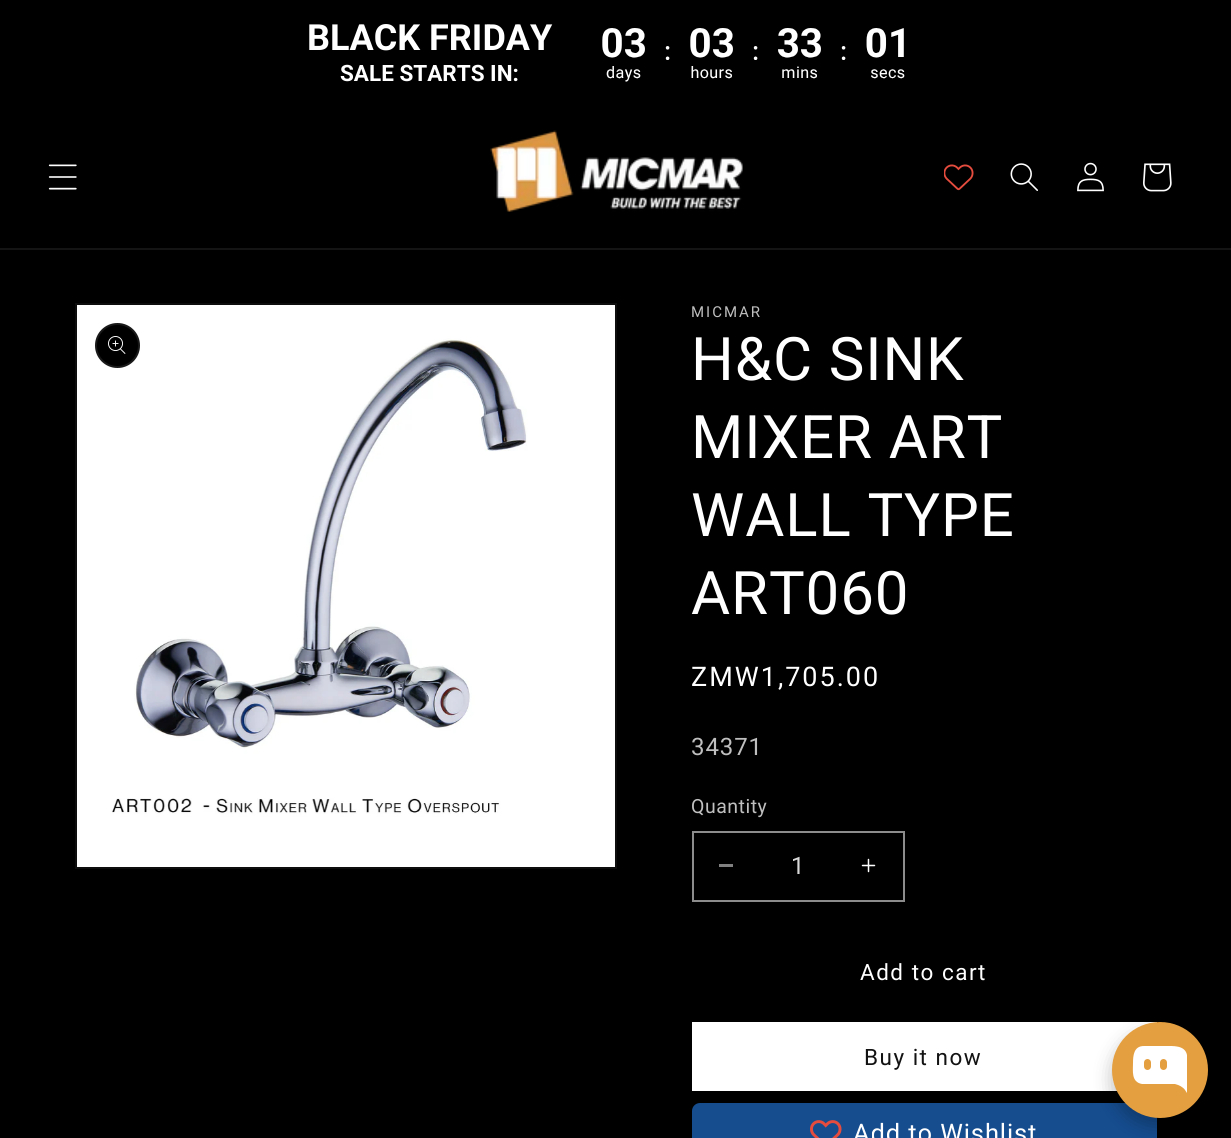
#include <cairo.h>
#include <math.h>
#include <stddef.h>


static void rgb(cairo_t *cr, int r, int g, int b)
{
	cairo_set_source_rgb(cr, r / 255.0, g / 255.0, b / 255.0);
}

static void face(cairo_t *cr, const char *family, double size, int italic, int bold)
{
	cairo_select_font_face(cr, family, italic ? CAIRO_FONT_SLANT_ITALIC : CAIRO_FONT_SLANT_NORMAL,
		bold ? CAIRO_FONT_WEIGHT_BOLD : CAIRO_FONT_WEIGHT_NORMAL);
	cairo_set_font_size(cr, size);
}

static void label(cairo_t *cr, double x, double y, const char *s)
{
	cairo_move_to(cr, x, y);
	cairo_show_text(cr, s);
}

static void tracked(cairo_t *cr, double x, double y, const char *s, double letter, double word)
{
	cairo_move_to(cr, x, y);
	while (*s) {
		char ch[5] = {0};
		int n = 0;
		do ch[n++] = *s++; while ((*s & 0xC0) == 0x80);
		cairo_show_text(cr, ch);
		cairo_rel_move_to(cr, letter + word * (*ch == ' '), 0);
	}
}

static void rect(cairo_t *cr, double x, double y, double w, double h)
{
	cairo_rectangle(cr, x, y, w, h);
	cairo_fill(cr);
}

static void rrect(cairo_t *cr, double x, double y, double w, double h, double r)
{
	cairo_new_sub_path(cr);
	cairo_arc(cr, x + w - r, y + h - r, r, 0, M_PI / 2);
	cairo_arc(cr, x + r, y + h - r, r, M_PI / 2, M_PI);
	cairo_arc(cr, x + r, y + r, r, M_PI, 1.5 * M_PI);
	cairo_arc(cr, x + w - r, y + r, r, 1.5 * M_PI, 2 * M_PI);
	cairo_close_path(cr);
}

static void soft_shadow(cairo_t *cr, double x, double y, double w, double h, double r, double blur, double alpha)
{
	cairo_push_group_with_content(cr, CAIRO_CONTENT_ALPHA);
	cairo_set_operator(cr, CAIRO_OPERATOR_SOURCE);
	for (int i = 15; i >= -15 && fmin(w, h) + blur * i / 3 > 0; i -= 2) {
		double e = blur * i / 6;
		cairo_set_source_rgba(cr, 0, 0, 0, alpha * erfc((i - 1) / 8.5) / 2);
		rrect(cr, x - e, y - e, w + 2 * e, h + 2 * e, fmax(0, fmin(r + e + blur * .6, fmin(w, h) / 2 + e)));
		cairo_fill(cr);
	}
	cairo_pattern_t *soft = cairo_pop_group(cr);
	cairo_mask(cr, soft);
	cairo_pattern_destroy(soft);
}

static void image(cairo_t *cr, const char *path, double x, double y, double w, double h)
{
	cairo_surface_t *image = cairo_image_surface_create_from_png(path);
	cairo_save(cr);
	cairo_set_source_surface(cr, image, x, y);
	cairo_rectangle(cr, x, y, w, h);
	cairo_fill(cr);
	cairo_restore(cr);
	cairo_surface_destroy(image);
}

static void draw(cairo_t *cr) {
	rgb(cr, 0, 0, 0);
	cairo_paint(cr);
	face(cr, "Roboto", 36, 0, 1);
	rgb(cr, 255, 255, 255);
	label(cr, 307, 50, "BLACK FRIDAY");
	face(cr, "Roboto", 22.5, 0, 1);
	label(cr, 340, 81, "SALE STARTS IN:");
	image(cr, "image0.png", 602, 28, 303, 54);
	rgb(cr, 20, 20, 20);
	rect(cr, 0, 248, 1231, 2);
	image(cr, "image1.png", 48, 164, 29, 26);
	image(cr, "image2.png", 490, 130, 253, 82);
	image(cr, "image3.png", 944, 164, 30, 27);
	image(cr, "image4.png", 1010, 163, 28, 28);
	image(cr, "image5.png", 1077, 162, 27, 30);
	image(cr, "image6.png", 1143, 163, 29, 29);
	cairo_rectangle(cr, 76, 304, 540, 564);
	rgb(cr, 13, 13, 13);
	cairo_stroke(cr);
	image(cr, "image7.png", 77, 305, 538, 562);
	rgb(cr, 0, 0, 0);
	cairo_arc(cr, 117.5, 345.5, 22.5, 0, 2 * M_PI);
	cairo_fill(cr);
	cairo_arc(cr, 117.5, 345.5, 21.5, 0, 2 * M_PI);
	cairo_set_source_rgba(cr, 1, 1, 1, 0.1);
	cairo_stroke(cr);
	image(cr, "image8.png", 108, 336, 18, 18);
	face(cr, "Roboto", 15, 0, 0);
	rgb(cr, 191, 191, 191);
	tracked(cr, 691, 317, "MICMAR", 2, 0);
	face(cr, "Roboto", 60, 0, 0);
	rgb(cr, 255, 255, 255);
	tracked(cr, 691, 380, "H&C SINK", 0.9, 0);
	tracked(cr, 691, 458, "MIXER ART", 0.9, 0);
	tracked(cr, 691, 536, "WALL TYPE", 0.9, 0);
	tracked(cr, 691, 614, "ART060", 0.9, 0);
	face(cr, "Roboto", 27, 0, 0);
	tracked(cr, 691, 686, "ZMW1,705.00", 2, 0);
	face(cr, "Roboto", 24, 0, 0);
	rgb(cr, 191, 191, 191);
	tracked(cr, 691, 755, "34371", 0.9, 0);
	face(cr, "Roboto", 19.5, 0, 0);
	tracked(cr, 691, 813, "Quantity", 0.5, 0);
	rgb(cr, 128, 128, 128);
	rect(cr, 719, 864, 14, 3);
	image(cr, "image9.png", 861, 858, 15, 15);
	cairo_rectangle(cr, 693, 832, 211, 69);
	rgb(cr, 140, 140, 140);
	cairo_stroke(cr);
	face(cr, "Roboto", 24, 0, 0);
	rgb(cr, 217, 217, 217);
	label(cr, 791, 874, "1");
	face(cr, "Roboto", 22.5, 0, 0);
	rgb(cr, 255, 255, 255);
	tracked(cr, 860, 980, "Add to cart", 1.5, 0);
	rect(cr, 692, 1022, 465, 69);
	rgb(cr, 18, 18, 18);
	tracked(cr, 864, 1065, "Buy it now", 1.5, 0);
	rgb(cr, 21, 77, 143);
	rrect(cr, 693, 1104, 463, 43, 7);
	cairo_fill_preserve(cr);
	cairo_stroke(cr);
	image(cr, "image10.png", 810, 1120, 32, 18);
	face(cr, "Roboto", 25.5, 0, 0);
	rgb(cr, 255, 255, 255);
	tracked(cr, 853, 1142, "Add to Wishlist", 0.9, 0);
	rgb(cr, 0, 0, 0);
	soft_shadow(cr, 1112, 1031, 96, 96, 48, 9, 0.25);
	rgb(cr, 228, 159, 64);
	cairo_arc(cr, 1160, 1070, 48, 0, 2 * M_PI);
	cairo_fill(cr);
	rgb(cr, 255, 255, 255);
	cairo_set_fill_rule(cr, CAIRO_FILL_RULE_EVEN_ODD);
	cairo_new_path(cr);
	cairo_move_to(cr, 1144, 1046);
	cairo_curve_to(cr, 1134, 1046, 1133, 1055, 1133, 1063);
	cairo_curve_to(cr, 1133, 1071, 1131, 1082, 1142, 1084);
	cairo_line_to(cr, 1175, 1084);
	cairo_curve_to(cr, 1179, 1085, 1183, 1087, 1185, 1090);
	cairo_line_to(cr, 1187, 1093);
	cairo_line_to(cr, 1187, 1055);
	cairo_curve_to(cr, 1185, 1045, 1173, 1046, 1165, 1046);
	cairo_close_path(cr);
	cairo_fill(cr);
	rgb(cr, 228, 159, 64);
	rrect(cr, 1144, 1059, 7, 11, 3.5);
	cairo_fill(cr);
	rrect(cr, 1160, 1059, 7, 11, 3.5);
	cairo_fill(cr);
}

int main(void) {
	cairo_surface_t *surface = cairo_image_surface_create(CAIRO_FORMAT_RGB24, 1231, 1138);
	cairo_t *cr = cairo_create(surface);
	cairo_font_options_t *options = cairo_font_options_create();
	cairo_font_options_set_hint_metrics(options, CAIRO_HINT_METRICS_OFF);
	cairo_font_options_set_hint_style(options, CAIRO_HINT_STYLE_NONE);
	cairo_set_font_options(cr, options);
	cairo_set_miter_limit(cr, 4);
	draw(cr);
	cairo_surface_write_to_png(surface, "render.png");
	cairo_font_options_destroy(options);
	cairo_destroy(cr);
	cairo_surface_destroy(surface);
	return 0;
}
